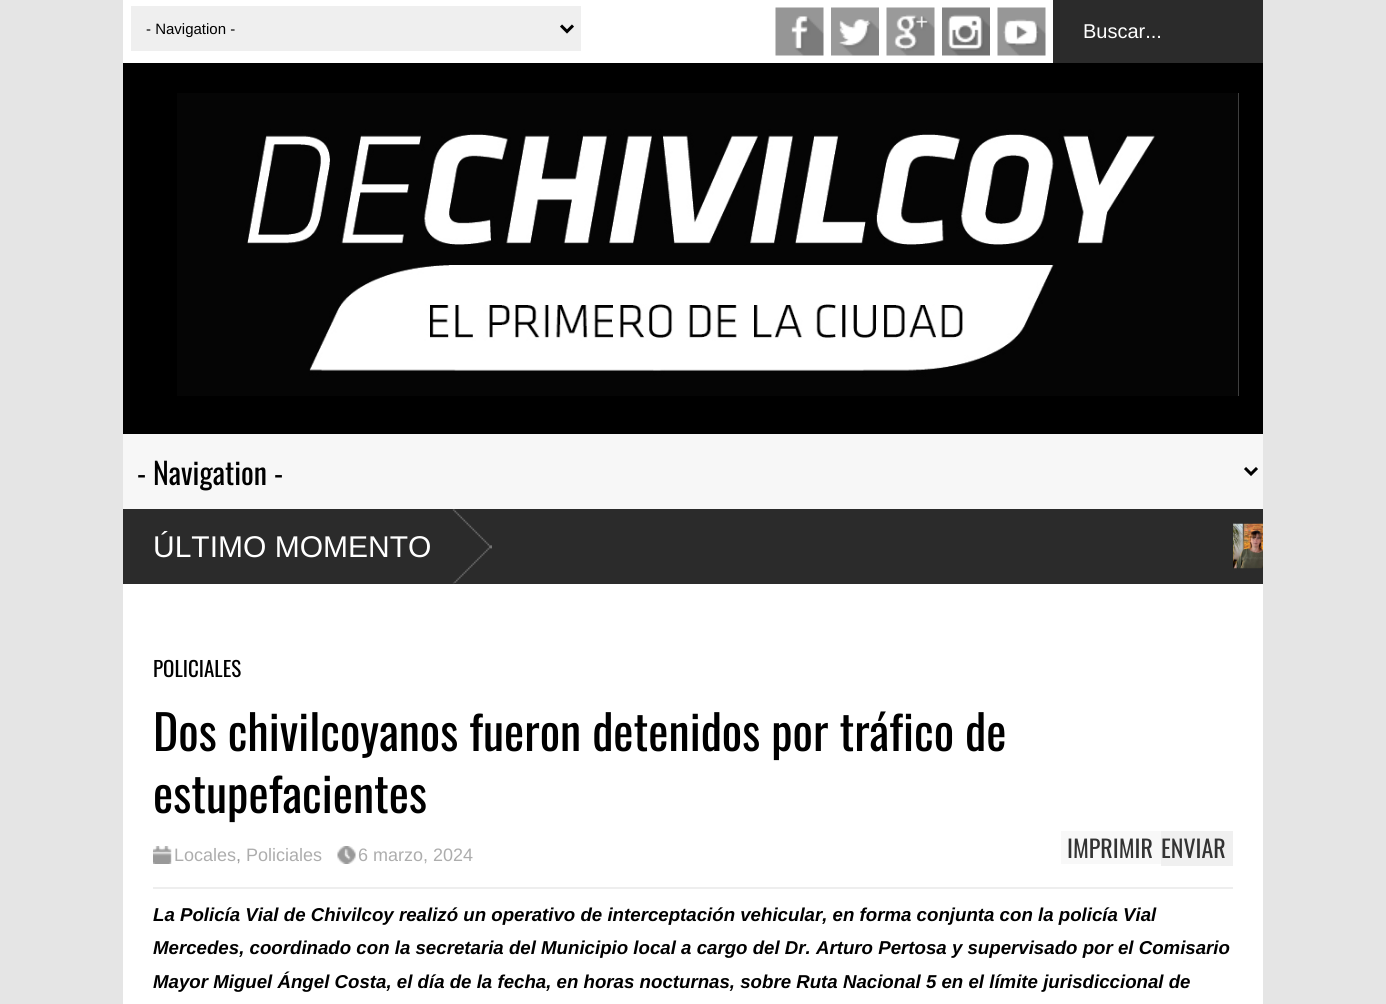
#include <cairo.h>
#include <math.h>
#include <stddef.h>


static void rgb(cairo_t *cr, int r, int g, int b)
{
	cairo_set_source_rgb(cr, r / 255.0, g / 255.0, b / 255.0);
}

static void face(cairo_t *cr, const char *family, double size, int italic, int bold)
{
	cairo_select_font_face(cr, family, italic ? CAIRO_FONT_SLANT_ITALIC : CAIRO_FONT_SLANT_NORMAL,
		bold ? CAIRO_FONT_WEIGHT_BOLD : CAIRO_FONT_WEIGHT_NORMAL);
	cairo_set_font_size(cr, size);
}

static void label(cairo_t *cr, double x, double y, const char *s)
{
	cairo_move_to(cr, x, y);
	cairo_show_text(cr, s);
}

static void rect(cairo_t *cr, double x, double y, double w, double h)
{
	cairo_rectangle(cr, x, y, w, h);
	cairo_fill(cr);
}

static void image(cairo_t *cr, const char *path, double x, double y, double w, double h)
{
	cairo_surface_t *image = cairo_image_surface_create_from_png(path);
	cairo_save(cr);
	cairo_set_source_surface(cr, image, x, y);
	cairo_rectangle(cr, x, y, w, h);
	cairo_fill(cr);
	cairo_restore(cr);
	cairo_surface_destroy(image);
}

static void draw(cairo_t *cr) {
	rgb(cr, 229, 229, 229);
	cairo_paint(cr);
	rgb(cr, 255, 255, 255);
	rect(cr, 123, 0, 1140, 1004);
	rgb(cr, 239, 239, 239);
	rect(cr, 131, 6, 450, 45);
	cairo_new_path(cr);
	cairo_move_to(cr, 561, 25.5);
	cairo_line_to(cr, 567, 31.5);
	cairo_line_to(cr, 573, 25.5);
	rgb(cr, 0, 0, 0);
	cairo_set_line_width(cr, 3);
	cairo_stroke(cr);
	face(cr, "Liberation Sans", 15, 0, 0);
	label(cr, 146, 34, "- Navigation -");
	image(cr, "image0.png", 775, 7, 49, 49);
	image(cr, "image1.png", 831, 7, 48, 49);
	image(cr, "image2.png", 886, 7, 49, 49);
	image(cr, "image3.png", 942, 7, 48, 49);
	image(cr, "image4.png", 997, 7, 49, 49);
	rgb(cr, 43, 43, 43);
	rect(cr, 1053, 0, 210, 63);
	face(cr, "Liberation Sans", 20, 0, 0);
	rgb(cr, 255, 255, 255);
	label(cr, 1083, 38, "Buscar...");
	rgb(cr, 0, 0, 0);
	rect(cr, 123, 63, 1140, 371);
	image(cr, "image5.png", 177, 93, 1062, 303);
	rgb(cr, 247, 247, 247);
	rect(cr, 123, 434, 1140, 75);
	cairo_new_path(cr);
	cairo_move_to(cr, 1245, 468);
	cairo_line_to(cr, 1251, 474);
	cairo_line_to(cr, 1257, 468);
	rgb(cr, 0, 0, 0);
	cairo_stroke(cr);
	face(cr, "Oswald", 30, 0, 0);
	label(cr, 137, 485, "- Navigation -");
	rgb(cr, 43, 43, 43);
	rect(cr, 123, 509, 1140, 75);
	image(cr, "image6.png", 452, 509, 40, 75);
	face(cr, "Liberation Sans", 30, 0, 0);
	rgb(cr, 255, 255, 255);
	label(cr, 153, 557, "ÚLTIMO MOMENTO");
	image(cr, "image7.png", 1233, 523, 30, 46);
	face(cr, "Oswald", 21, 0, 0);
	rgb(cr, 0, 0, 0);
	label(cr, 153, 677, "POLICIALES");
	face(cr, "Oswald", 48, 0, 0);
	label(cr, 153, 751, "Dos chivilcoyanos fueron detenidos por tráfico de");
	label(cr, 153, 813, "estupefacientes");
	rgb(cr, 238, 238, 238);
	rect(cr, 153, 887, 1080, 2);
	image(cr, "image8.png", 153, 846, 19, 18);
	face(cr, "Liberation Sans", 18, 0, 0);
	rgb(cr, 173, 173, 173);
	label(cr, 174, 861, "Locales");
	rgb(cr, 153, 153, 153);
	label(cr, 236, 861, ",");
	rgb(cr, 173, 173, 173);
	label(cr, 246, 861, "Policiales");
	image(cr, "image9.png", 337, 846, 19, 18);
	label(cr, 358, 861, "6 marzo, 2024");
	rgb(cr, 248, 248, 248);
	rect(cr, 1061, 831, 100, 33);
	face(cr, "Oswald", 24, 0, 0);
	rgb(cr, 51, 51, 51);
	label(cr, 1067, 858, "IMPRIMIR");
	rgb(cr, 240, 240, 240);
	rect(cr, 1161, 831, 72, 35);
	rgb(cr, 51, 51, 51);
	label(cr, 1161, 858, "ENVIAR");
	face(cr, "Liberation Sans", 18.67, 1, 1);
	rgb(cr, 0, 0, 0);
	label(cr, 153, 921, "La Policía Vial de Chivilcoy realizó un operativo de interceptación vehicular, en forma conjunta con la policía Vial");
	label(cr, 153, 954, "Mercedes, coordinado con la secretaria del Municipio local a cargo del Dr. Arturo Pertosa y supervisado por el Comisario");
	label(cr, 153, 988, "Mayor Miguel Ángel Costa, el día de la fecha, en horas nocturnas, sobre Ruta Nacional 5 en el límite jurisdiccional de");
}

int main(void) {
	cairo_surface_t *surface = cairo_image_surface_create(CAIRO_FORMAT_RGB24, 1386, 1004);
	cairo_t *cr = cairo_create(surface);
	cairo_font_options_t *options = cairo_font_options_create();
	cairo_font_options_set_hint_metrics(options, CAIRO_HINT_METRICS_OFF);
	cairo_font_options_set_hint_style(options, CAIRO_HINT_STYLE_NONE);
	cairo_set_font_options(cr, options);
	cairo_set_miter_limit(cr, 4);
	draw(cr);
	cairo_surface_write_to_png(surface, "render.png");
	cairo_font_options_destroy(options);
	cairo_destroy(cr);
	cairo_surface_destroy(surface);
	return 0;
}
